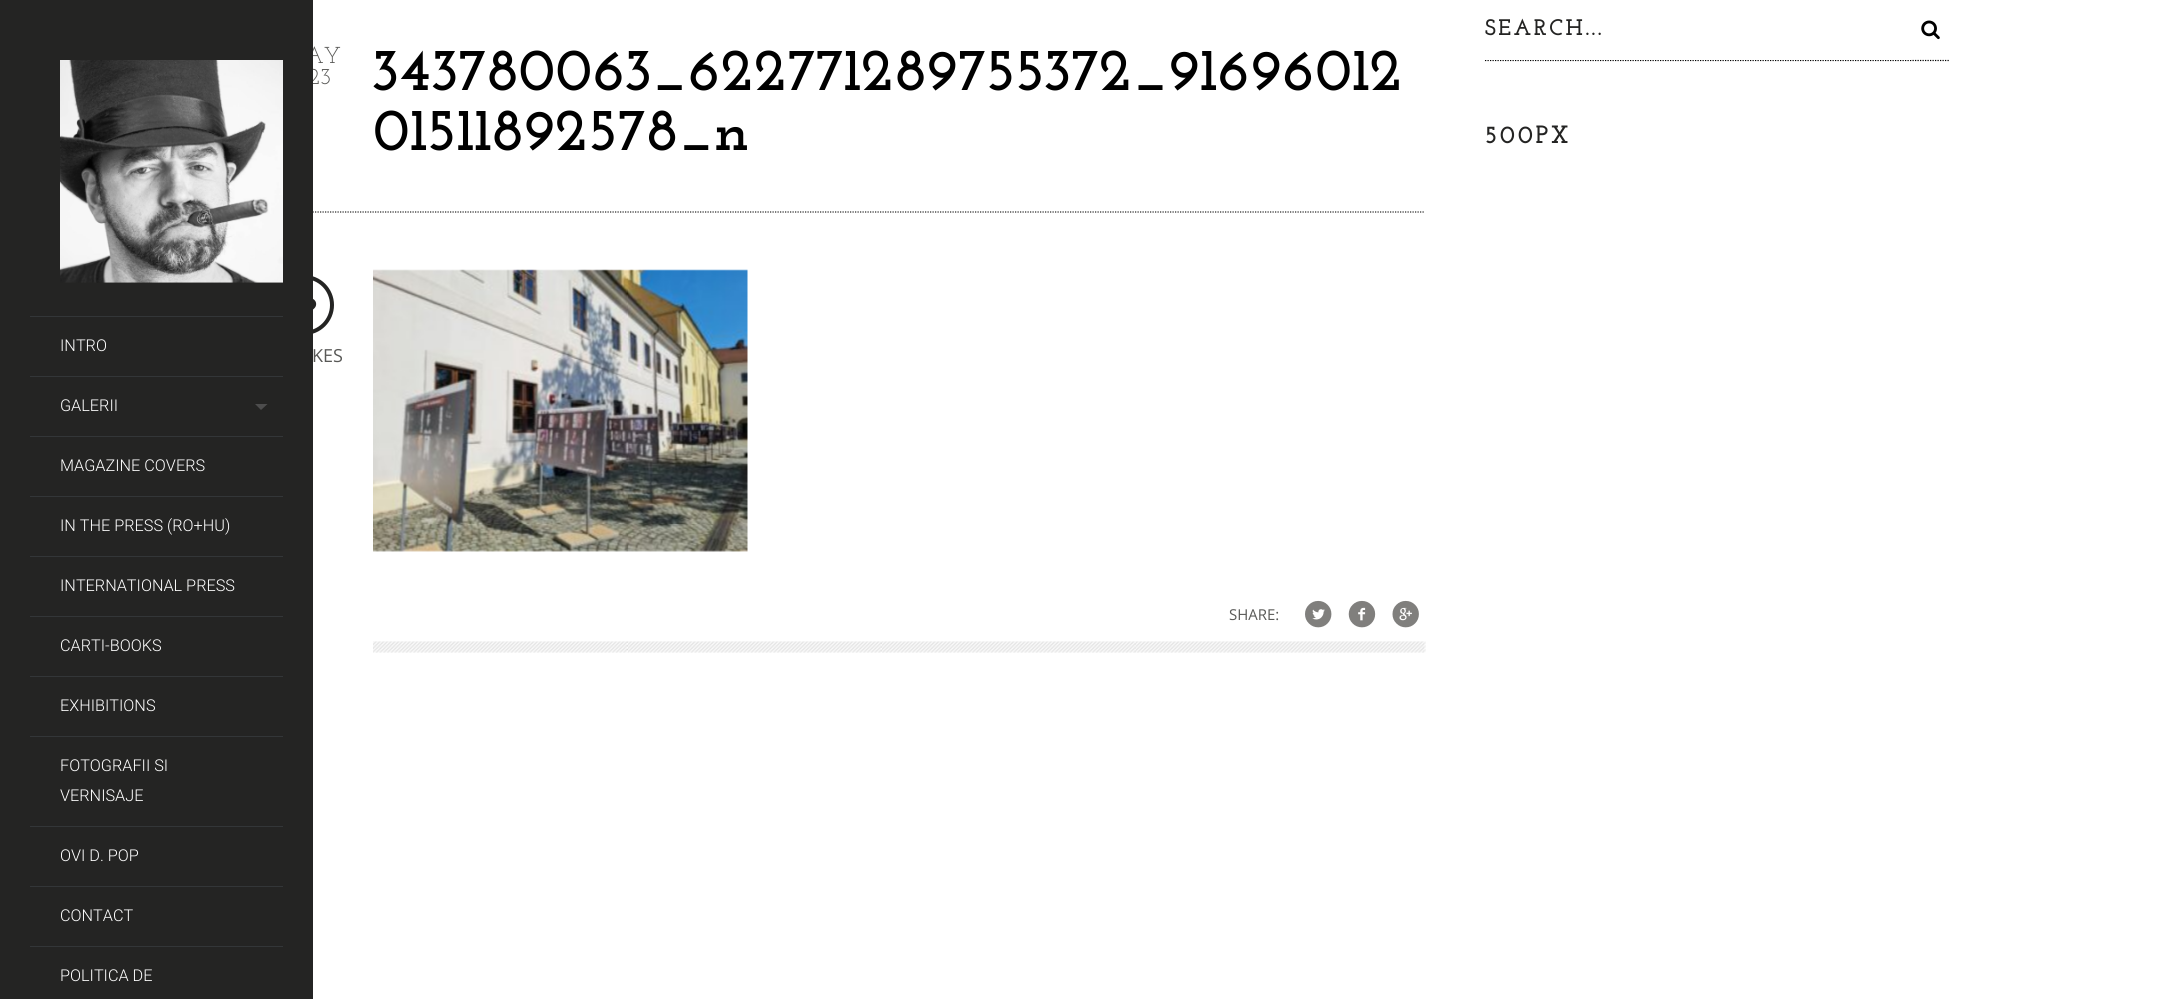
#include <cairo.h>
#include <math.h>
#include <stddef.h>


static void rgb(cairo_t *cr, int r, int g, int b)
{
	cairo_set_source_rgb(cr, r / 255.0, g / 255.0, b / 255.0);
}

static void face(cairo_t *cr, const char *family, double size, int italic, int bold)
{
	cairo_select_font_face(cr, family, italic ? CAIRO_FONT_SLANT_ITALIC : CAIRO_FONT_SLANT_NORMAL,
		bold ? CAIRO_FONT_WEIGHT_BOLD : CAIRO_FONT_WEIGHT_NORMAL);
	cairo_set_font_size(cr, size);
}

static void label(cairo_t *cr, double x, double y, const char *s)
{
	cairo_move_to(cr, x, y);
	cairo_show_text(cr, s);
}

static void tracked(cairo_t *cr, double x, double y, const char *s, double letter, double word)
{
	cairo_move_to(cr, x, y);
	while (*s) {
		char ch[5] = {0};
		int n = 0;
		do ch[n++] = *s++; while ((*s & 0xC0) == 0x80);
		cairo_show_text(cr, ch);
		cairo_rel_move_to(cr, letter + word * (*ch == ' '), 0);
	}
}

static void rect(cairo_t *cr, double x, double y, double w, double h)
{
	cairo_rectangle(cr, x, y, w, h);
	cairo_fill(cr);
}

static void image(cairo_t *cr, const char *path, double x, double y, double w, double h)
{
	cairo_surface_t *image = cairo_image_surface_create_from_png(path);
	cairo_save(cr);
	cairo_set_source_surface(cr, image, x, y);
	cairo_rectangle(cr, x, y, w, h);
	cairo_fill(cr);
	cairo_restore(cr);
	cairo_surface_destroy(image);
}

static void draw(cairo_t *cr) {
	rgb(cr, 255, 255, 255);
	cairo_paint(cr);
	face(cr, "Josefin Slab", 23, 0, 0);
	rgb(cr, 89, 89, 87);
	label(cr, 305, 63, "AY");
	label(cr, 308, 84, "23");
	cairo_new_path(cr);
	cairo_move_to(cr, 312.5, 212);
	cairo_line_to(cr, 1425, 212);
	rgb(cr, 36, 36, 35);
	cairo_set_line_width(cr, 1.2);
	cairo_set_dash(cr, (double[]){1.25, 1.25}, 2, 0);
	cairo_stroke(cr);
	cairo_arc(cr, 304, 305, 28, 0, 2 * M_PI);
	cairo_set_line_width(cr, 4);
	cairo_set_dash(cr, NULL, 0, 0);
	cairo_stroke(cr);
	rect(cr, 0, 0, 313, 999);
	image(cr, "image0.png", 60, 60, 223, 223);
	rgb(cr, 51, 54, 56);
	rect(cr, 30, 316, 253, 1);
	rect(cr, 30, 376, 253, 1);
	face(cr, "Roboto Light", 16.25, 0, 0);
	rgb(cr, 255, 255, 255);
	label(cr, 60, 351, "INTRO");
	rgb(cr, 51, 54, 56);
	rect(cr, 30, 436, 253, 1);
	rgb(cr, 255, 255, 255);
	label(cr, 60, 411, "GALERII");
	rgb(cr, 77, 77, 77);
	cairo_new_path(cr);
	cairo_move_to(cr, 255, 404);
	cairo_line_to(cr, 267.5, 404);
	cairo_line_to(cr, 261, 410);
	cairo_close_path(cr);
	cairo_fill(cr);
	rgb(cr, 51, 54, 56);
	rect(cr, 30, 496, 253, 1);
	rgb(cr, 255, 255, 255);
	label(cr, 60, 471, "MAGAZINE COVERS");
	rgb(cr, 51, 54, 56);
	rect(cr, 30, 556, 253, 1);
	rgb(cr, 255, 255, 255);
	label(cr, 60, 531, "IN THE PRESS (RO+HU)");
	rgb(cr, 51, 54, 56);
	rect(cr, 30, 616, 253, 1);
	rgb(cr, 255, 255, 255);
	label(cr, 60, 591, "INTERNATIONAL PRESS");
	rgb(cr, 51, 54, 56);
	rect(cr, 30, 676, 253, 1);
	rgb(cr, 255, 255, 255);
	label(cr, 60, 651, "CARTI-BOOKS");
	rgb(cr, 51, 54, 56);
	rect(cr, 30, 736, 253, 1);
	rgb(cr, 255, 255, 255);
	label(cr, 60, 711, "EXHIBITIONS");
	rgb(cr, 51, 54, 56);
	rect(cr, 30, 826, 253, 1);
	rgb(cr, 255, 255, 255);
	label(cr, 60, 771, "FOTOGRAFII SI");
	label(cr, 60, 801, "VERNISAJE");
	rgb(cr, 51, 54, 56);
	rect(cr, 30, 886, 253, 1);
	rgb(cr, 255, 255, 255);
	label(cr, 60, 861, "OVI D. POP");
	rgb(cr, 51, 54, 56);
	rect(cr, 30, 946, 253, 1);
	rgb(cr, 255, 255, 255);
	label(cr, 60, 921, "CONTACT");
	label(cr, 60, 981, "POLITICA DE");
	face(cr, "Josefin Slab", 60, 0, 1);
	rgb(cr, 0, 0, 0);
	label(cr, 373, 90, "343780063_622771289755372_91696012");
	label(cr, 373, 150, "01511892578_n");
	image(cr, "image1.png", 313, 299, 4, 11);
	face(cr, "Open Sans", 18, 0, 0);
	rgb(cr, 89, 89, 87);
	label(cr, 312, 362, "KES");
	image(cr, "image2.png", 373, 269, 375, 283);
	face(cr, "Open Sans", 15, 0, 0);
	label(cr, 1229, 620, "SHARE:");
	image(cr, "image3.png", 1305, 600, 27, 28);
	image(cr, "image4.png", 1348, 600, 28, 28);
	image(cr, "image5.png", 1392, 600, 27, 28);
	image(cr, "image6.png", 373, 641, 1053, 12);
	cairo_new_path(cr);
	cairo_move_to(cr, 1485, 60.5);
	cairo_line_to(cr, 1950, 60.5);
	rgb(cr, 0, 0, 0);
	cairo_set_line_width(cr, 1.2);
	cairo_set_dash(cr, (double[]){1.25, 1.25}, 2, 0);
	cairo_stroke(cr);
	rgb(cr, 255, 255, 255);
	rect(cr, 1485, 59, 426, 1);
	face(cr, "Josefin Slab", 22.5, 0, 1);
	rgb(cr, 36, 36, 35);
	tracked(cr, 1485, 35, "SEARCH...", 2.5, 0);
	image(cr, "image7.png", 1921, 20, 19, 20);
	face(cr, "Josefin Slab", 25, 0, 1);
	tracked(cr, 1485, 143, "500PX", 2.5, 0);
}

int main(void) {
	cairo_surface_t *surface = cairo_image_surface_create(CAIRO_FORMAT_RGB24, 2172, 999);
	cairo_t *cr = cairo_create(surface);
	cairo_font_options_t *options = cairo_font_options_create();
	cairo_font_options_set_hint_metrics(options, CAIRO_HINT_METRICS_OFF);
	cairo_font_options_set_hint_style(options, CAIRO_HINT_STYLE_NONE);
	cairo_set_font_options(cr, options);
	cairo_set_miter_limit(cr, 4);
	draw(cr);
	cairo_surface_write_to_png(surface, "render.png");
	cairo_font_options_destroy(options);
	cairo_destroy(cr);
	cairo_surface_destroy(surface);
	return 0;
}
